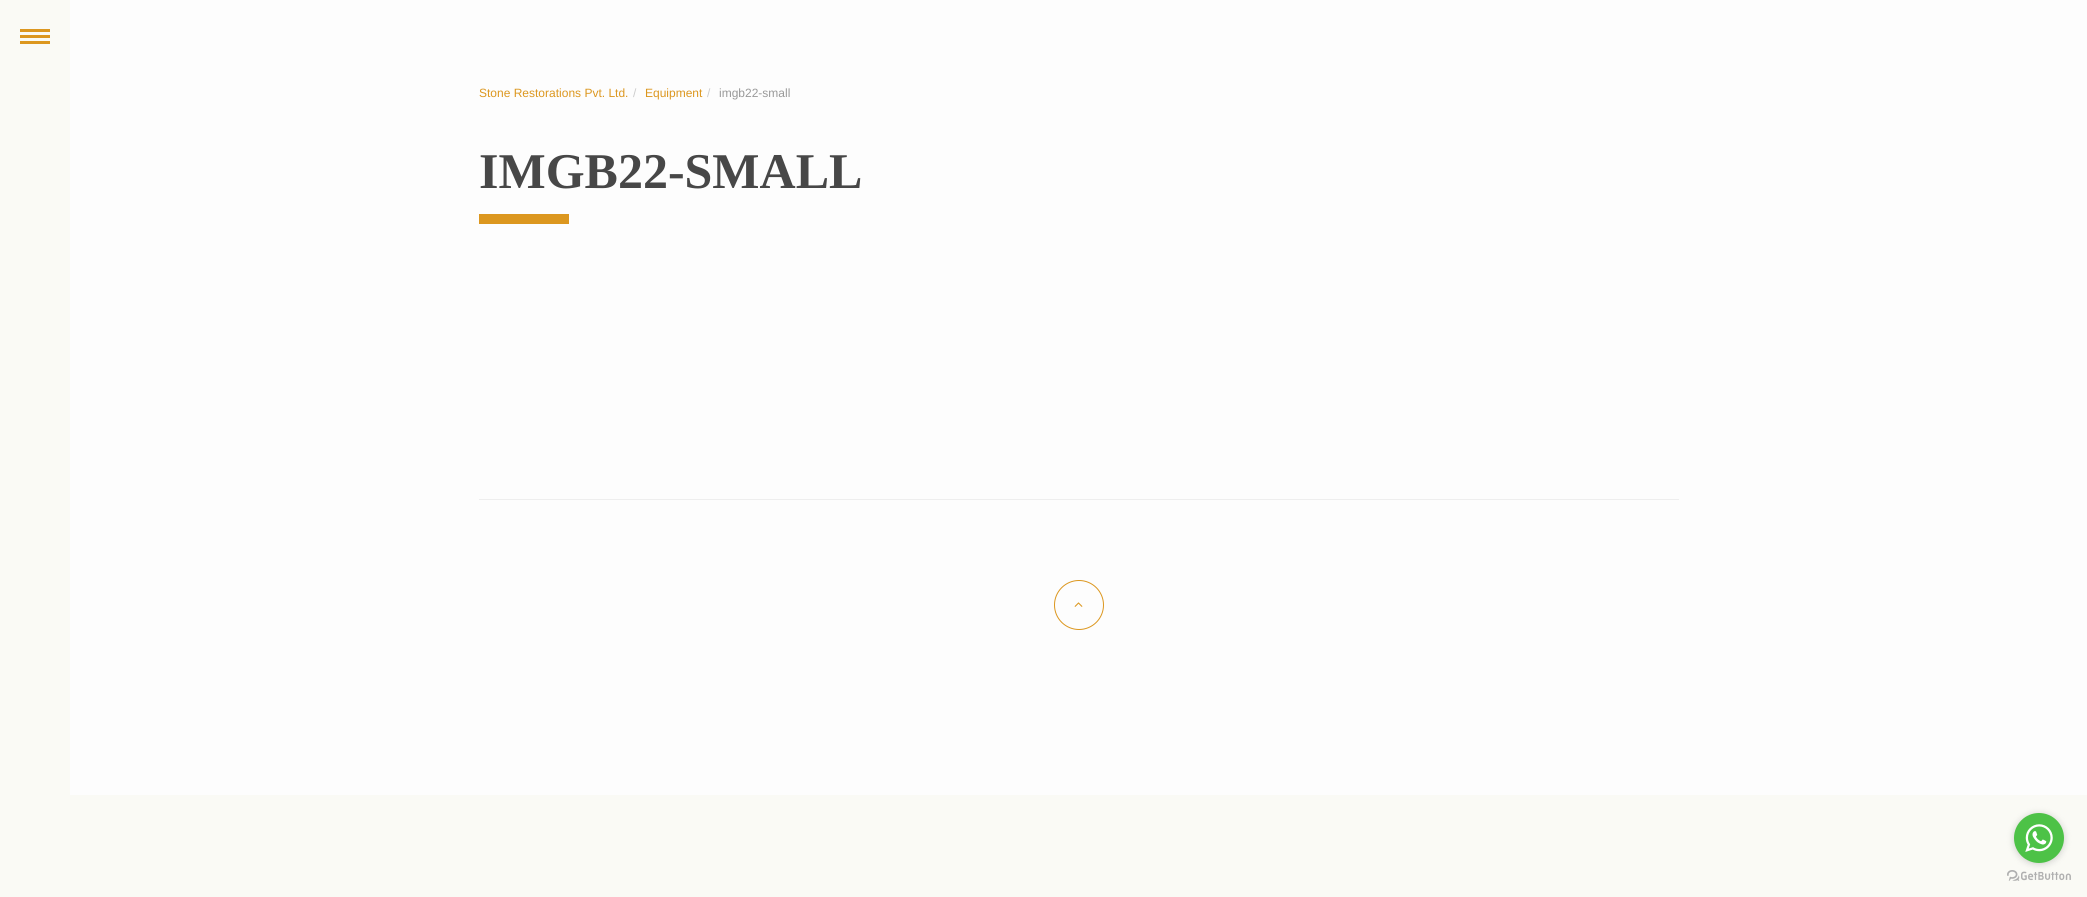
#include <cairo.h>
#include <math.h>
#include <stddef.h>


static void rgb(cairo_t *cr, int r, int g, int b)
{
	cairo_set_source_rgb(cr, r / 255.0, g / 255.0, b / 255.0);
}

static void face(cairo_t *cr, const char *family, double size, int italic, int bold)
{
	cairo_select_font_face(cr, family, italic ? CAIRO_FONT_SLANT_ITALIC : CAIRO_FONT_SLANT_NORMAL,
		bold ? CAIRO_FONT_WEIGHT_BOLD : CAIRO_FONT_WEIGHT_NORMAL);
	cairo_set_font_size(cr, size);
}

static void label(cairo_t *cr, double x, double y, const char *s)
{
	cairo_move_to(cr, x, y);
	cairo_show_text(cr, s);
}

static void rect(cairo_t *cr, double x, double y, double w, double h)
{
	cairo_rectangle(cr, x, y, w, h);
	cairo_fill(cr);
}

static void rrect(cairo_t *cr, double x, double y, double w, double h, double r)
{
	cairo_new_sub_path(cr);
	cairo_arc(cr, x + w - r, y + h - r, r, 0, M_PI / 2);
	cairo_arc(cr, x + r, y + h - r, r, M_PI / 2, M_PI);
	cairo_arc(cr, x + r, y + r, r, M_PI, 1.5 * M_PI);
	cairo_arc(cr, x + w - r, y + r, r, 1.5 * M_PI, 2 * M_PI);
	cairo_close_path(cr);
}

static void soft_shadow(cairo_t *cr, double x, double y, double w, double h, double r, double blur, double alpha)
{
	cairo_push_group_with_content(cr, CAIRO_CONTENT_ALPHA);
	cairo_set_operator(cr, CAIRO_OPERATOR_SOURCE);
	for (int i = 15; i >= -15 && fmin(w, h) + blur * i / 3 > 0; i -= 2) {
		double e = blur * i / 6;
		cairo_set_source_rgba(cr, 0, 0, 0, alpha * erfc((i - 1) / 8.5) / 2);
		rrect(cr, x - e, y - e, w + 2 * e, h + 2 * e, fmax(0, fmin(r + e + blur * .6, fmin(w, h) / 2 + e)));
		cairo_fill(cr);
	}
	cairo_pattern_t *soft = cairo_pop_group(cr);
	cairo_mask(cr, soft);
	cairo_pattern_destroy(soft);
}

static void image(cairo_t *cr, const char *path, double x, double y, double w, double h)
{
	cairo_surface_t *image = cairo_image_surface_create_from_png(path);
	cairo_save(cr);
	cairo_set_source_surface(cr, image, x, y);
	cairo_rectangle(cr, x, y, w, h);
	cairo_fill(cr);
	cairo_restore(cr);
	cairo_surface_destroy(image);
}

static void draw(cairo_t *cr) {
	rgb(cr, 250, 250, 245);
	cairo_paint(cr);
	rgb(cr, 220, 151, 31);
	rect(cr, 20, 35, 30, 3);
	rect(cr, 20, 29, 30, 3);
	rect(cr, 20, 41, 30, 3);
	rgb(cr, 253, 253, 253);
	rect(cr, 70, 0, 2017, 795);
	face(cr, "Liberation Sans", 12, 0, 0);
	rgb(cr, 220, 151, 31);
	label(cr, 479, 97, "Stone Restorations Pvt. Ltd.");
	rgb(cr, 204, 204, 204);
	label(cr, 633, 97, "/");
	rgb(cr, 220, 151, 31);
	label(cr, 645, 97, "Equipment");
	rgb(cr, 204, 204, 204);
	label(cr, 707, 97, "/");
	rgb(cr, 153, 153, 153);
	label(cr, 719, 97, "imgb22-small");
	face(cr, "Liberation Serif", 50, 0, 1);
	rgb(cr, 71, 71, 71);
	label(cr, 479, 188, "IMGB22-SMALL");
	rgb(cr, 220, 151, 31);
	rect(cr, 479, 214, 90, 10);
	rgb(cr, 238, 238, 238);
	rect(cr, 479, 499, 1200, 1);
	cairo_new_path(cr);
	cairo_arc(cr, 1079, 605, 24.5, 0, 2 * M_PI);
	rgb(cr, 220, 151, 31);
	cairo_set_line_width(cr, 1);
	cairo_stroke(cr);
	image(cr, "image0.png", 1074, 602, 9, 5);
	image(cr, "image2.png", 2007, 870, 64, 11);
	rgb(cr, 136, 136, 136);
	soft_shadow(cr, 2014, 814, 50, 50, 25, 3.5, 0.4);
	rgb(cr, 77, 194, 71);
	cairo_arc(cr, 2039, 838, 25, 0, 2 * M_PI);
	cairo_fill(cr);
	image(cr, "image1.png", 2025, 824, 28, 28);
}

int main(void) {
	cairo_surface_t *surface = cairo_image_surface_create(CAIRO_FORMAT_RGB24, 2087, 897);
	cairo_t *cr = cairo_create(surface);
	cairo_font_options_t *options = cairo_font_options_create();
	cairo_font_options_set_hint_metrics(options, CAIRO_HINT_METRICS_OFF);
	cairo_font_options_set_hint_style(options, CAIRO_HINT_STYLE_NONE);
	cairo_set_font_options(cr, options);
	cairo_set_miter_limit(cr, 4);
	draw(cr);
	cairo_surface_write_to_png(surface, "render.png");
	cairo_font_options_destroy(options);
	cairo_destroy(cr);
	cairo_surface_destroy(surface);
	return 0;
}
